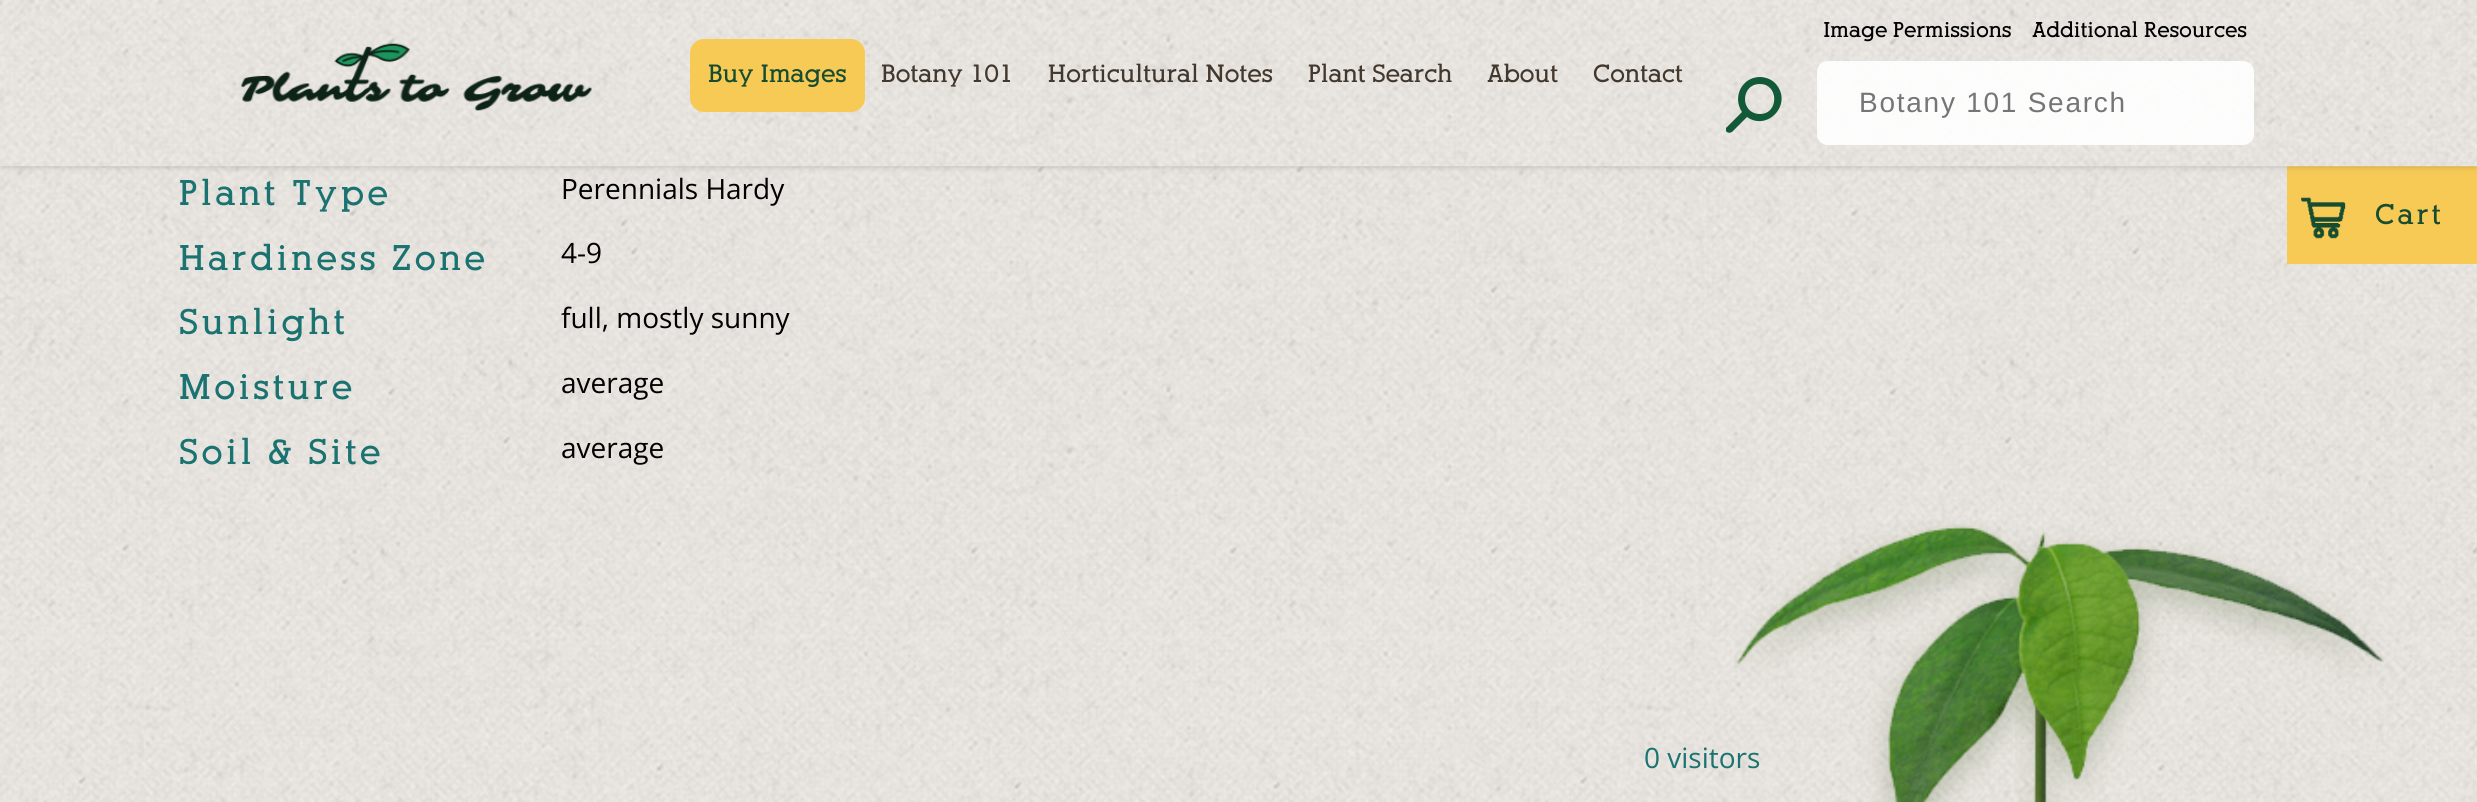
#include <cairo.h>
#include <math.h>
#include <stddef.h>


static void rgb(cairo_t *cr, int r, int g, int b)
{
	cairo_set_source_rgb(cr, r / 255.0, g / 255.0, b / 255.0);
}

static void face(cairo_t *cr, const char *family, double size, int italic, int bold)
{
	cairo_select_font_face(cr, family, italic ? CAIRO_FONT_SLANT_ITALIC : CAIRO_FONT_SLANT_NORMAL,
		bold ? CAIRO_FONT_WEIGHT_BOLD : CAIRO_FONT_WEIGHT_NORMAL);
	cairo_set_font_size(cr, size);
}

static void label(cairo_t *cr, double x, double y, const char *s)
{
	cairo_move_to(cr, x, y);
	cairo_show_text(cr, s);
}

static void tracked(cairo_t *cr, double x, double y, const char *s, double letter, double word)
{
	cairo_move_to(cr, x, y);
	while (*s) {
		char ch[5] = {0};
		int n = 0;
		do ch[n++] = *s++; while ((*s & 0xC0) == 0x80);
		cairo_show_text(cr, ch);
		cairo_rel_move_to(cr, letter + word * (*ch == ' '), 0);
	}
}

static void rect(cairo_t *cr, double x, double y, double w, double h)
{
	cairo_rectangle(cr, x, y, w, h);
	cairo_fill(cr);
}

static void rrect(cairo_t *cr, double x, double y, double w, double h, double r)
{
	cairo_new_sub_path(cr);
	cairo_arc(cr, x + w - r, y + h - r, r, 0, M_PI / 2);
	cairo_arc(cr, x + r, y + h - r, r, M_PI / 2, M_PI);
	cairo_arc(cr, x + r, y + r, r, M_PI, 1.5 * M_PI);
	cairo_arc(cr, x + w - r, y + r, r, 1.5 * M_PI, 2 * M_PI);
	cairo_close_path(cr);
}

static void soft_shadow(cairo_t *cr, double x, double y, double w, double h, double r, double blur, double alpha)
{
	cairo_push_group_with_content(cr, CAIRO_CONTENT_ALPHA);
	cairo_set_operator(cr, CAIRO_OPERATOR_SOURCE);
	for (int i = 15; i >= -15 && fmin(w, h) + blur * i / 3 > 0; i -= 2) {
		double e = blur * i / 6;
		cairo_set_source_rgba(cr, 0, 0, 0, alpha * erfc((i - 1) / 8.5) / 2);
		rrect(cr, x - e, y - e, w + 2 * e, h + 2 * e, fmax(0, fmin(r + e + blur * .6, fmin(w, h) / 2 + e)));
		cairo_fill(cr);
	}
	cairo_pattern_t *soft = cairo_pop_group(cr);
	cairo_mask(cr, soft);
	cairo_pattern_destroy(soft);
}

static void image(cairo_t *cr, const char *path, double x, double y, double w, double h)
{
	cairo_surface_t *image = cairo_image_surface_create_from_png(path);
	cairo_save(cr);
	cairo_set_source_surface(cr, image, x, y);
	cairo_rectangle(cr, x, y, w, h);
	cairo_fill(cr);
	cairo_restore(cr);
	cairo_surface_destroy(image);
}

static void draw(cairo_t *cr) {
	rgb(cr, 255, 255, 255);
	cairo_paint(cr);
	image(cr, "image0.png", 0, 166, 2477, 636);
	rgb(cr, 246, 202, 85);
	rect(cr, 2287, 166, 190, 98);
	rgb(cr, 0, 0, 0);
	soft_shadow(cr, 4, 4, 2471, 159, 0, 4.5, 0.5);
	image(cr, "image1.png", 0, 0, 2477, 167);
	face(cr, "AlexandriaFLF", 21, 0, 1);
	rgb(cr, 0, 0, 0);
	label(cr, 1823, 37, "Image Permissions");
	label(cr, 2032, 37, "Additional Resources");
	image(cr, "image2.png", 241, 43, 351, 68);
	rgb(cr, 246, 202, 85);
	rrect(cr, 690, 39, 175, 73, 14);
	cairo_fill(cr);
	face(cr, "AlexandriaFLF", 24.5, 0, 1);
	rgb(cr, 23, 76, 49);
	label(cr, 708, 82, "Buy Images");
	rgb(cr, 67, 56, 46);
	label(cr, 881, 82, "Botany 101");
	label(cr, 1048, 82, "Horticultural Notes");
	label(cr, 1308, 82, "Plant Search");
	label(cr, 1487, 82, "About");
	label(cr, 1593, 82, "Contact");
	cairo_save(cr);
	cairo_rectangle(cr, 1726, 77, 56, 56);
	cairo_clip(cr);
	rgb(cr, 18, 89, 55);
	cairo_new_path(cr);
	cairo_move_to(cr, 1760, 77);
	cairo_curve_to(cr, 1742, 77, 1732, 97, 1742, 112);
	cairo_line_to(cr, 1727, 127);
	cairo_curve_to(cr, 1725, 128, 1725, 131, 1727, 132);
	cairo_curve_to(cr, 1728, 133, 1730, 133, 1732, 132);
	cairo_line_to(cr, 1747, 117);
	cairo_curve_to(cr, 1768, 132, 1794, 103, 1775, 83);
	cairo_curve_to(cr, 1771, 79, 1765, 77, 1760, 77);
	cairo_close_path(cr);
	cairo_move_to(cr, 1760, 114);
	cairo_curve_to(cr, 1740, 114, 1740, 84, 1760, 84);
	cairo_curve_to(cr, 1779, 84, 1779, 114, 1760, 114);
	cairo_close_path(cr);
	cairo_fill(cr);
	cairo_restore(cr);
	cairo_set_source_rgba(cr, 1, 1, 1, 0.9);
	rrect(cr, 1817, 61, 437, 84, 11);
	cairo_fill(cr);
	face(cr, "Liberation Sans", 28, 0, 0);
	rgb(cr, 117, 117, 117);
	tracked(cr, 1859, 112, "Botany 101 Search", 1.75, 0);
	face(cr, "AlexandriaFLF", 35, 0, 1);
	rgb(cr, 26, 115, 113);
	tracked(cr, 179, 205, "Plant Type", 3.5, 0);
	face(cr, "Open Sans", 28, 0, 0);
	rgb(cr, 0, 0, 0);
	label(cr, 561, 199, "Perennials Hardy");
	face(cr, "AlexandriaFLF", 35, 0, 1);
	rgb(cr, 26, 115, 113);
	tracked(cr, 179, 270, "Hardiness Zone", 3.5, 0);
	face(cr, "Open Sans", 28, 0, 0);
	rgb(cr, 0, 0, 0);
	label(cr, 561, 263, "4-9");
	face(cr, "AlexandriaFLF", 35, 0, 1);
	rgb(cr, 26, 115, 113);
	tracked(cr, 179, 334, "Sunlight", 3.5, 0);
	face(cr, "Open Sans", 28, 0, 0);
	rgb(cr, 0, 0, 0);
	label(cr, 561, 328, "full, mostly sunny");
	face(cr, "AlexandriaFLF", 35, 0, 1);
	rgb(cr, 26, 115, 113);
	tracked(cr, 179, 399, "Moisture", 3.5, 0);
	face(cr, "Open Sans", 28, 0, 0);
	rgb(cr, 0, 0, 0);
	label(cr, 561, 393, "average");
	face(cr, "AlexandriaFLF", 35, 0, 1);
	rgb(cr, 26, 115, 113);
	tracked(cr, 179, 464, "Soil & Site", 3.5, 0);
	face(cr, "Open Sans", 28, 0, 0);
	rgb(cr, 0, 0, 0);
	label(cr, 561, 458, "average");
	image(cr, "image3.png", 2301, 197, 45, 42);
	face(cr, "AlexandriaFLF", 28, 0, 1);
	rgb(cr, 23, 76, 49);
	tracked(cr, 2375, 224, "Cart", 3, 0);
	image(cr, "image4.png", 2015, 693, 51, 109);
	image(cr, "image5.png", 1735, 521, 649, 281);
	face(cr, "Open Sans", 28, 0, 0);
	rgb(cr, 26, 115, 113);
	label(cr, 1644, 768, "0 visitors");
}

int main(void) {
	cairo_surface_t *surface = cairo_image_surface_create(CAIRO_FORMAT_RGB24, 2477, 802);
	cairo_t *cr = cairo_create(surface);
	cairo_font_options_t *options = cairo_font_options_create();
	cairo_font_options_set_hint_metrics(options, CAIRO_HINT_METRICS_OFF);
	cairo_font_options_set_hint_style(options, CAIRO_HINT_STYLE_NONE);
	cairo_set_font_options(cr, options);
	cairo_set_miter_limit(cr, 4);
	draw(cr);
	cairo_surface_write_to_png(surface, "render.png");
	cairo_font_options_destroy(options);
	cairo_destroy(cr);
	cairo_surface_destroy(surface);
	return 0;
}
